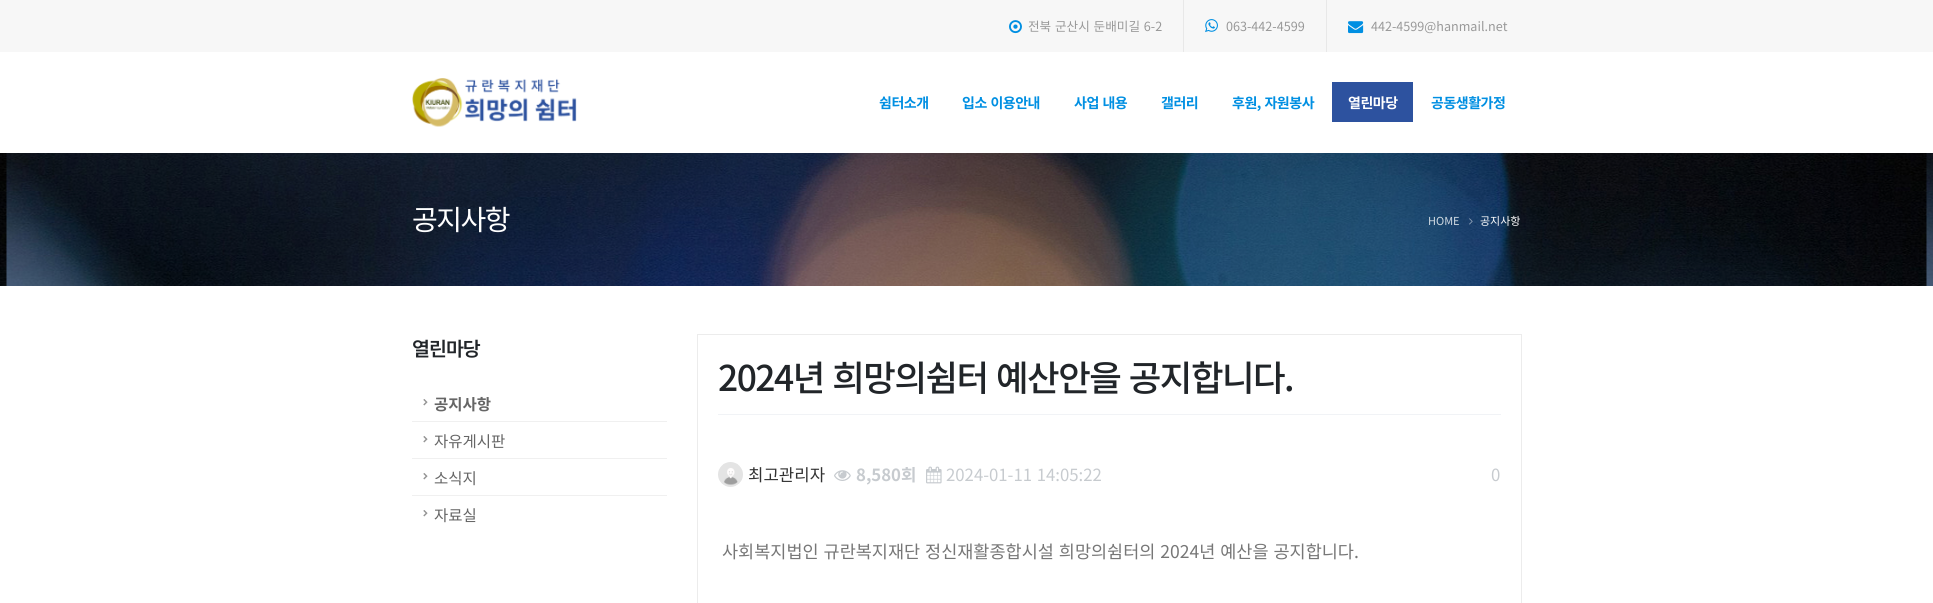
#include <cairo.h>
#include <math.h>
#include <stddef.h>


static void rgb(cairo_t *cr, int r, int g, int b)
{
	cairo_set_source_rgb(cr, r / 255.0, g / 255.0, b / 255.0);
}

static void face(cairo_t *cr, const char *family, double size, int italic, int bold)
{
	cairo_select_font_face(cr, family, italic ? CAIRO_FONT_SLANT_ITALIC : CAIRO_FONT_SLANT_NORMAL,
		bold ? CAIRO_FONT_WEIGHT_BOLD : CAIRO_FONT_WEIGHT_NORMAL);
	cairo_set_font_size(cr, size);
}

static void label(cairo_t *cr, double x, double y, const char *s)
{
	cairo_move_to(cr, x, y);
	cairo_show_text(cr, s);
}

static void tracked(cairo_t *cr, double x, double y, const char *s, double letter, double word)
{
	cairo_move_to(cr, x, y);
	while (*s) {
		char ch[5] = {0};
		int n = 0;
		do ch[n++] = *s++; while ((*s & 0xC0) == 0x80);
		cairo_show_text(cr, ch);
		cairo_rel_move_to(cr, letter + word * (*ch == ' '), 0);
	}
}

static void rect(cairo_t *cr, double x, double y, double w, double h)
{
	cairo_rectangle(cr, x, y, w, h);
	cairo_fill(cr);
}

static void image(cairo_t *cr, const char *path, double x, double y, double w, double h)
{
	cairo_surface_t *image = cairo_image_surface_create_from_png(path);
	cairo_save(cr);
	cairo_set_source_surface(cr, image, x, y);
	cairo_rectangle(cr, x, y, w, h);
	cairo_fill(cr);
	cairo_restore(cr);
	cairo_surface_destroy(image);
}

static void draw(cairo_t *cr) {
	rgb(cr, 255, 255, 255);
	cairo_paint(cr);
	rgb(cr, 247, 247, 247);
	rect(cr, 0, 0, 1933, 52);
	rgb(cr, 232, 232, 232);
	rect(cr, 1183, 0, 1, 52);
	image(cr, "image0.png", 1009, 20, 13, 14);
	face(cr, "Noto Sans KR", 12.6, 0, 0);
	rgb(cr, 153, 153, 153);
	tracked(cr, 1028, 31, "전북 군산시 둔배미길 6-2", 0, 1);
	rgb(cr, 232, 232, 232);
	rect(cr, 1326, 0, 1, 52);
	image(cr, "image1.png", 1205, 19, 13, 14);
	rgb(cr, 153, 153, 153);
	label(cr, 1226, 31, "063-442-4599");
	image(cr, "image2.png", 1348, 21, 16, 13);
	label(cr, 1371, 31, "442-4599@hanmail.net");
	image(cr, "image3.png", 412, 78, 165, 49);
	face(cr, "Noto Sans KR", 14, 0, 1);
	rgb(cr, 0, 143, 226);
	tracked(cr, 879, 108, "쉼터소개", -0.5, 0);
	tracked(cr, 962, 108, "입소 이용안내", -0.5, 1);
	tracked(cr, 1074, 108, "사업 내용", -0.5, 1);
	tracked(cr, 1161, 108, "갤러리", -0.5, 0);
	tracked(cr, 1232, 108, "후원, 자원봉사", -0.5, 1);
	rgb(cr, 45, 82, 159);
	rect(cr, 1332, 82, 81, 40);
	rgb(cr, 255, 255, 255);
	tracked(cr, 1348, 108, "열린마당", -0.5, 0);
	rgb(cr, 0, 143, 226);
	tracked(cr, 1431, 108, "공동생활가정", -0.5, 0);
	image(cr, "image4.png", 0, 153, 1933, 133);
	face(cr, "Noto Sans KR", 28, 0, 0);
	rgb(cr, 255, 255, 255);
	tracked(cr, 412, 230, "공지사항", -1.5, 0);
	face(cr, "Noto Sans KR", 11, 0, 0);
	rgb(cr, 209, 218, 226);
	label(cr, 1428, 225, "HOME");
	image(cr, "image5.png", 1469, 218, 4, 7);
	rgb(cr, 255, 255, 255);
	label(cr, 1480, 225, "공지사항");
	face(cr, "Noto Sans KR SemiBold", 19.5, 0, 0);
	rgb(cr, 33, 37, 41);
	tracked(cr, 412, 356, "열린마당", -1, 0);
	rgb(cr, 240, 240, 240);
	rect(cr, 412, 421, 255, 1);
	image(cr, "image6.png", 423, 399, 5, 7);
	face(cr, "Noto Sans KR", 15.5, 0, 1);
	rgb(cr, 102, 102, 102);
	label(cr, 434, 410, "공지사항");
	rgb(cr, 240, 240, 240);
	rect(cr, 412, 458, 255, 1);
	image(cr, "image6.png", 423, 436, 5, 7);
	face(cr, "Noto Sans KR", 15.5, 0, 0);
	rgb(cr, 102, 102, 102);
	label(cr, 434, 447, "자유게시판");
	rgb(cr, 240, 240, 240);
	rect(cr, 412, 495, 255, 1);
	image(cr, "image6.png", 423, 473, 5, 7);
	rgb(cr, 102, 102, 102);
	label(cr, 434, 484, "소식지");
	image(cr, "image6.png", 423, 510, 5, 7);
	label(cr, 434, 521, "자료실");
	cairo_rectangle(cr, 697.5, 334.5, 824, 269);
	rgb(cr, 236, 236, 236);
	cairo_set_line_width(cr, 1);
	cairo_stroke(cr);
	rgb(cr, 241, 243, 246);
	rect(cr, 718, 414, 783, 1);
	face(cr, "Noto Sans KR Medium", 35.4, 0, 0);
	rgb(cr, 33, 37, 41);
	tracked(cr, 718, 391, "2024년 희망의쉼터 예산안을 공지합니다.", -1.5, 2);
	image(cr, "image7.png", 718, 462, 25, 25);
	face(cr, "Noto Sans KR", 16.75, 0, 0);
	rgb(cr, 51, 51, 51);
	label(cr, 748, 481, "최고관리자");
	image(cr, "image8.png", 834, 470, 17, 11);
	face(cr, "Noto Sans KR", 16.75, 0, 1);
	rgb(cr, 199, 203, 207);
	label(cr, 856, 481, "8,580회");
	image(cr, "image9.png", 926, 466, 16, 18);
	face(cr, "Noto Sans KR", 16.75, 0, 0);
	tracked(cr, 946, 481, "2024-01-11 14:05:22", 0, 1);
	label(cr, 1491, 481, "0");
	face(cr, "Noto Sans KR", 17.5, 0, 0);
	rgb(cr, 119, 119, 119);
	tracked(cr, 722, 558, "사회복지법인 규란복지재단 정신재활종합시설 희망의쉼터의 2024년 예산을 공지합니다.", 0, 1);
}

int main(void) {
	cairo_surface_t *surface = cairo_image_surface_create(CAIRO_FORMAT_RGB24, 1933, 603);
	cairo_t *cr = cairo_create(surface);
	cairo_font_options_t *options = cairo_font_options_create();
	cairo_font_options_set_hint_metrics(options, CAIRO_HINT_METRICS_OFF);
	cairo_font_options_set_hint_style(options, CAIRO_HINT_STYLE_NONE);
	cairo_set_font_options(cr, options);
	cairo_set_miter_limit(cr, 4);
	draw(cr);
	cairo_surface_write_to_png(surface, "render.png");
	cairo_font_options_destroy(options);
	cairo_destroy(cr);
	cairo_surface_destroy(surface);
	return 0;
}
